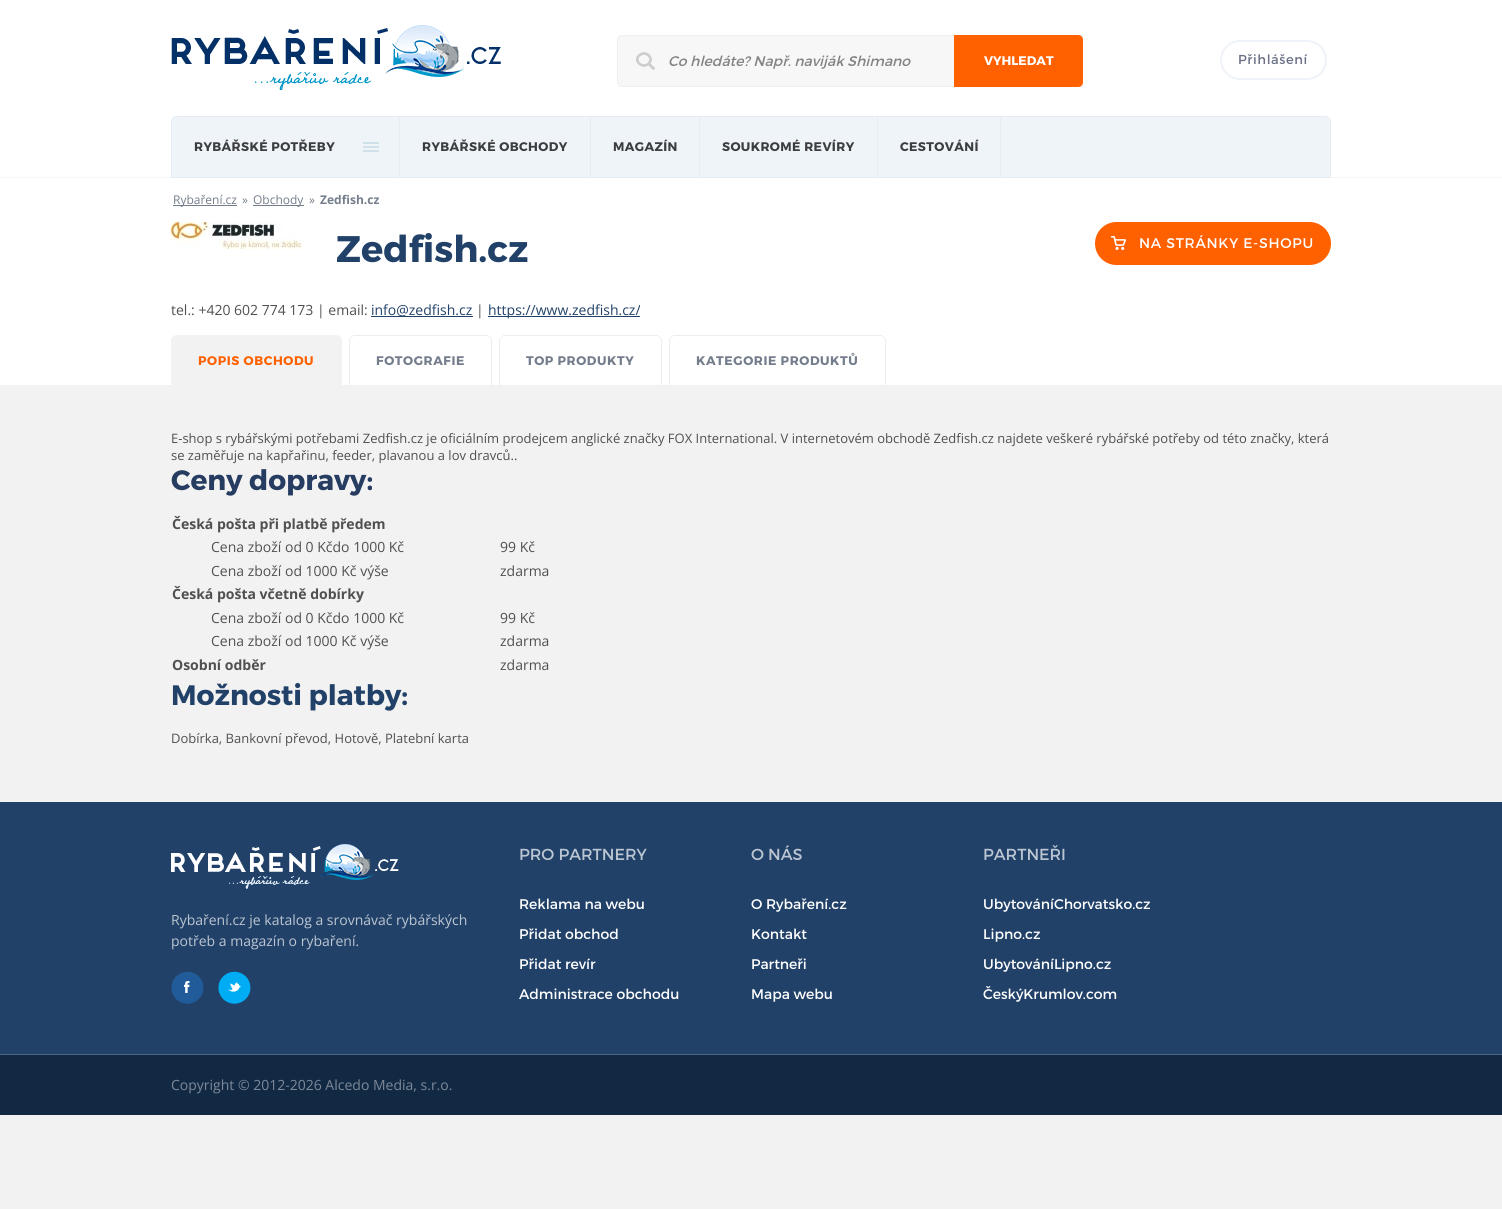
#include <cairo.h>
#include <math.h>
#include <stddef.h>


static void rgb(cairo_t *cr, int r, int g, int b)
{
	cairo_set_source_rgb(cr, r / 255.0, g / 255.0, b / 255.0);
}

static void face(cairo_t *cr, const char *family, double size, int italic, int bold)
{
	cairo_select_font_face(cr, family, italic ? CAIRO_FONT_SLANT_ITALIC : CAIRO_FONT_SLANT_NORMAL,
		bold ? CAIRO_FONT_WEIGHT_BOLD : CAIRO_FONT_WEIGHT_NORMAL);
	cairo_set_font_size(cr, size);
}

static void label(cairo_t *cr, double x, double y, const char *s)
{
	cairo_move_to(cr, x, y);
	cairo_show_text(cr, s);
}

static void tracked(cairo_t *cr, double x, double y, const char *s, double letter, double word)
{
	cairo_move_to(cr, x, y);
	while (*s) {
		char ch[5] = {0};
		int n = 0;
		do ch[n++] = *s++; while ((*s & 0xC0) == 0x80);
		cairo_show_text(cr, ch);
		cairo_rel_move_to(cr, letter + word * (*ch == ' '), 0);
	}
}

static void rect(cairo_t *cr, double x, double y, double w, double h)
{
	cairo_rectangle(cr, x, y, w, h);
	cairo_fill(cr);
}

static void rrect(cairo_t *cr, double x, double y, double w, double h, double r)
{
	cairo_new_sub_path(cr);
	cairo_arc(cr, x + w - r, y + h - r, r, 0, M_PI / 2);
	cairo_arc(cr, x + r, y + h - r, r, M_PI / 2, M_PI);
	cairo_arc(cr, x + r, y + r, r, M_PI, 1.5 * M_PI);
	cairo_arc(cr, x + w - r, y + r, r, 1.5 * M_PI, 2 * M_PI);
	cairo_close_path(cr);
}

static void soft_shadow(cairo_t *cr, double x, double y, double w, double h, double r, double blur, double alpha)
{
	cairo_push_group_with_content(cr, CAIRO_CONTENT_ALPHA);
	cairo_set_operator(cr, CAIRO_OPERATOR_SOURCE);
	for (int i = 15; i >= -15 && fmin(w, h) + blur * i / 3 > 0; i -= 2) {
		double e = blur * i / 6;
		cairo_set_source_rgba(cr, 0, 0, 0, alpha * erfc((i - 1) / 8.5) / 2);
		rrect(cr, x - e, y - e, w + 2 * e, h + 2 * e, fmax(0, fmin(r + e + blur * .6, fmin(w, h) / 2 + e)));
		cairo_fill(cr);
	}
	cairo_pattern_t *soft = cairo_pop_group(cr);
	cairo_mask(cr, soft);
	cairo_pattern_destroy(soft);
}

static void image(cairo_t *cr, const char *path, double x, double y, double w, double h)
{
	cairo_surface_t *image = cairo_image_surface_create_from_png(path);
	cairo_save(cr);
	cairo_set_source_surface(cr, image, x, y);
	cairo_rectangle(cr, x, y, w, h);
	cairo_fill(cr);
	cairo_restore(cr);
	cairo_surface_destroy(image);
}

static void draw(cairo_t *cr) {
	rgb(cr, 242, 242, 242);
	cairo_paint(cr);
	rgb(cr, 255, 255, 255);
	rect(cr, 0, 177, 1502, 208);
	rgb(cr, 221, 221, 221);
	soft_shadow(cr, 0, 0, 1502, 177, 0, 0.5, 1);
	rgb(cr, 255, 255, 255);
	rect(cr, 0, 0, 1502, 177);
	image(cr, "image0.png", 171, 25, 330, 65);
	rgb(cr, 247, 247, 247);
	cairo_new_path(cr);
	cairo_move_to(cr, 622, 35);
	cairo_line_to(cr, 1083, 35);
	cairo_line_to(cr, 1083, 87);
	cairo_line_to(cr, 622, 87);
	cairo_curve_to(cr, 619, 87, 617, 85, 617, 82);
	cairo_line_to(cr, 617, 40);
	cairo_curve_to(cr, 617, 37, 619, 35, 622, 35);
	cairo_close_path(cr);
	cairo_fill(cr);
	image(cr, "image1.png", 636, 52, 20, 18);
	rgb(cr, 240, 240, 240);
	cairo_set_fill_rule(cr, CAIRO_FILL_RULE_EVEN_ODD);
	cairo_new_path(cr);
	cairo_move_to(cr, 622, 35);
	cairo_line_to(cr, 1083, 35);
	cairo_line_to(cr, 1083, 87);
	cairo_line_to(cr, 622, 87);
	cairo_curve_to(cr, 619, 87, 617, 85, 617, 82);
	cairo_line_to(cr, 617, 40);
	cairo_curve_to(cr, 617, 37, 619, 35, 622, 35);
	cairo_close_path(cr);
	cairo_move_to(cr, 622, 36);
	cairo_line_to(cr, 1083, 36);
	cairo_line_to(cr, 1083, 86);
	cairo_line_to(cr, 622, 86);
	cairo_curve_to(cr, 620, 86, 618, 84, 618, 82);
	cairo_line_to(cr, 618, 40);
	cairo_curve_to(cr, 618, 38, 620, 36, 622, 36);
	cairo_close_path(cr);
	cairo_fill(cr);
	face(cr, "Montserrat", 14, 1, 0);
	rgb(cr, 131, 131, 131);
	label(cr, 668, 66, "Co hledáte? Např. naviják Shimano");
	rgb(cr, 255, 96, 0);
	cairo_new_path(cr);
	cairo_move_to(cr, 954, 35);
	cairo_line_to(cr, 1078, 35);
	cairo_curve_to(cr, 1081, 35, 1083, 37, 1083, 40);
	cairo_line_to(cr, 1083, 82);
	cairo_curve_to(cr, 1083, 85, 1081, 87, 1078, 87);
	cairo_line_to(cr, 954, 87);
	cairo_close_path(cr);
	cairo_fill(cr);
	face(cr, "Montserrat", 13, 0, 1);
	rgb(cr, 255, 255, 255);
	label(cr, 984, 65, "VYHLEDAT");
	rrect(cr, 1221, 41, 105, 38, 19);
	rgb(cr, 239, 243, 249);
	cairo_stroke(cr);
	face(cr, "Montserrat", 13, 0, 0);
	rgb(cr, 106, 113, 135);
	tracked(cr, 1238, 64, "Přihlášení", 0.6, 0);
	rgb(cr, 239, 244, 249);
	cairo_new_path(cr);
	cairo_move_to(cr, 177, 116.5);
	cairo_line_to(cr, 1325, 116.5);
	cairo_curve_to(cr, 1328, 116.5, 1330.5, 119, 1330.5, 122);
	cairo_line_to(cr, 1330.5, 177.5);
	cairo_line_to(cr, 171.5, 177.5);
	cairo_line_to(cr, 171.5, 122);
	cairo_curve_to(cr, 171.5, 119, 174, 116.5, 177, 116.5);
	cairo_close_path(cr);
	cairo_fill_preserve(cr);
	rgb(cr, 230, 236, 244);
	cairo_set_line_width(cr, 1);
	cairo_stroke(cr);
	rect(cr, 399, 117, 1, 60);
	image(cr, "image2.png", 363, 142, 16, 10);
	face(cr, "Montserrat", 13, 0, 1);
	rgb(cr, 60, 61, 65);
	tracked(cr, 194, 151, "RYBÁŘSKÉ POTŘEBY", 0.4, 0);
	rgb(cr, 230, 236, 244);
	rect(cr, 590, 117, 1, 60);
	rgb(cr, 60, 61, 65);
	tracked(cr, 422, 151, "RYBÁŘSKÉ OBCHODY", 0.4, 0);
	rgb(cr, 230, 236, 244);
	rect(cr, 699, 117, 1, 60);
	rgb(cr, 60, 61, 65);
	tracked(cr, 613, 151, "MAGAZÍN", 0.4, 0);
	rgb(cr, 230, 236, 244);
	rect(cr, 877, 117, 1, 60);
	rgb(cr, 60, 61, 65);
	tracked(cr, 722, 151, "SOUKROMÉ REVÍRY", 0.4, 0);
	rgb(cr, 230, 236, 244);
	rect(cr, 1000, 117, 1, 60);
	rgb(cr, 60, 61, 65);
	tracked(cr, 900, 151, "CESTOVÁNÍ", 0.4, 0);
	rgb(cr, 116, 125, 140);
	rect(cr, 173, 205, 64, 1);
	face(cr, "Open Sans", 12, 0, 0);
	label(cr, 173, 204, "Rybaření.cz");
	label(cr, 242, 204, "»");
	rect(cr, 253, 205, 51, 1);
	label(cr, 253, 204, "Obchody");
	label(cr, 309, 204, "»");
	face(cr, "Open Sans", 12, 0, 1);
	label(cr, 320, 204, "Zedfish.cz");
	image(cr, "image3.png", 171, 222, 130, 27);
	face(cr, "Montserrat", 38.5, 0, 1);
	rgb(cr, 33, 65, 104);
	label(cr, 336, 262, "Zedfish.cz");
	rgb(cr, 255, 96, 0);
	rrect(cr, 1095, 222, 236, 43, 21.5);
	cairo_fill(cr);
	image(cr, "image4.png", 1111, 236, 15, 14);
	face(cr, "Montserrat", 14, 0, 0);
	rgb(cr, 255, 255, 255);
	tracked(cr, 1139, 248, "NA STRÁNKY E-SHOPU", 0.75, 0);
	face(cr, "Open Sans", 14, 0, 0);
	rgb(cr, 80, 80, 80);
	label(cr, 171, 315, "tel.: +420 602 774 173 | email:");
	rgb(cr, 33, 65, 104);
	rect(cr, 371, 316, 102, 1);
	label(cr, 371, 315, "info@zedfish.cz");
	rgb(cr, 80, 80, 80);
	label(cr, 476, 315, "|");
	rgb(cr, 33, 65, 104);
	rect(cr, 488, 316, 152, 1);
	label(cr, 488, 315, "https://www.zedfish.cz/");
	rgb(cr, 242, 242, 242);
	cairo_new_path(cr);
	cairo_move_to(cr, 177, 335);
	cairo_line_to(cr, 336, 335);
	cairo_curve_to(cr, 339.5, 335, 342, 337.5, 342, 341);
	cairo_line_to(cr, 342, 385);
	cairo_line_to(cr, 171, 385);
	cairo_line_to(cr, 171, 341);
	cairo_curve_to(cr, 171, 337.5, 173.5, 335, 177, 335);
	cairo_close_path(cr);
	cairo_fill(cr);
	face(cr, "Montserrat", 13, 0, 1);
	rgb(cr, 255, 96, 0);
	tracked(cr, 198, 365, "POPIS OBCHODU", 0.6, 0);
	rgb(cr, 237, 237, 237);
	cairo_new_path(cr);
	cairo_move_to(cr, 355, 335);
	cairo_line_to(cr, 486, 335);
	cairo_curve_to(cr, 489, 335, 492, 338, 492, 341);
	cairo_line_to(cr, 492, 385);
	cairo_line_to(cr, 349, 385);
	cairo_line_to(cr, 349, 341);
	cairo_curve_to(cr, 349, 338, 352, 335, 355, 335);
	cairo_close_path(cr);
	cairo_move_to(cr, 355, 336);
	cairo_line_to(cr, 486, 336);
	cairo_curve_to(cr, 489, 336, 491, 338, 491, 341);
	cairo_line_to(cr, 491, 385);
	cairo_line_to(cr, 350, 385);
	cairo_line_to(cr, 350, 341);
	cairo_curve_to(cr, 350, 338, 352, 336, 355, 336);
	cairo_close_path(cr);
	cairo_fill(cr);
	rgb(cr, 116, 125, 140);
	tracked(cr, 376, 365, "FOTOGRAFIE", 0.6, 0);
	rgb(cr, 237, 237, 237);
	cairo_new_path(cr);
	cairo_move_to(cr, 505, 335);
	cairo_line_to(cr, 656, 335);
	cairo_curve_to(cr, 659, 335, 662, 338, 662, 341);
	cairo_line_to(cr, 662, 385);
	cairo_line_to(cr, 499, 385);
	cairo_line_to(cr, 499, 341);
	cairo_curve_to(cr, 499, 338, 502, 335, 505, 335);
	cairo_close_path(cr);
	cairo_move_to(cr, 505, 336);
	cairo_line_to(cr, 656, 336);
	cairo_curve_to(cr, 659, 336, 661, 338, 661, 341);
	cairo_line_to(cr, 661, 385);
	cairo_line_to(cr, 500, 385);
	cairo_line_to(cr, 500, 341);
	cairo_curve_to(cr, 500, 338, 502, 336, 505, 336);
	cairo_close_path(cr);
	cairo_fill(cr);
	rgb(cr, 116, 125, 140);
	tracked(cr, 526, 365, "TOP PRODUKTY", 0.6, 0);
	rgb(cr, 237, 237, 237);
	cairo_new_path(cr);
	cairo_move_to(cr, 675, 335);
	cairo_line_to(cr, 880, 335);
	cairo_curve_to(cr, 883, 335, 886, 338, 886, 341);
	cairo_line_to(cr, 886, 385);
	cairo_line_to(cr, 669, 385);
	cairo_line_to(cr, 669, 341);
	cairo_curve_to(cr, 669, 338, 672, 335, 675, 335);
	cairo_close_path(cr);
	cairo_move_to(cr, 675, 336);
	cairo_line_to(cr, 880, 336);
	cairo_curve_to(cr, 883, 336, 885, 338, 885, 341);
	cairo_line_to(cr, 885, 385);
	cairo_line_to(cr, 670, 385);
	cairo_line_to(cr, 670, 341);
	cairo_curve_to(cr, 670, 338, 672, 336, 675, 336);
	cairo_close_path(cr);
	cairo_fill(cr);
	rgb(cr, 116, 125, 140);
	tracked(cr, 696, 365, "KATEGORIE PRODUKTŮ", 0.6, 0);
	face(cr, "Open Sans", 13, 0, 0);
	rgb(cr, 80, 80, 80);
	label(cr, 171, 443, "E-shop s rybářskými potřebami Zedfish.cz je oficiálním prodejcem anglické značky FOX International. V internetovém obchodě Zedfish.cz najdete veškeré rybářské potřeby od této značky, která");
	label(cr, 171, 460, "se zaměřuje na kapřařinu, feeder, plavanou a lov dravců..");
	face(cr, "Montserrat", 29.25, 0, 1);
	rgb(cr, 38, 60, 97);
	label(cr, 171, 490, "Ceny dopravy:");
	face(cr, "Open Sans", 14, 0, 1);
	rgb(cr, 80, 80, 80);
	label(cr, 172, 529, "Česká pošta při platbě předem");
	face(cr, "Open Sans", 14, 0, 0);
	label(cr, 211, 552, "Cena zboží od 0 Kčdo 1000 Kč");
	label(cr, 500, 552, "99 Kč");
	label(cr, 211, 576, "Cena zboží od 1000 Kč výše");
	label(cr, 500, 576, "zdarma");
	face(cr, "Open Sans", 14, 0, 1);
	label(cr, 172, 599, "Česká pošta včetně dobírky");
	face(cr, "Open Sans", 14, 0, 0);
	label(cr, 211, 623, "Cena zboží od 0 Kčdo 1000 Kč");
	label(cr, 500, 623, "99 Kč");
	label(cr, 211, 646, "Cena zboží od 1000 Kč výše");
	label(cr, 500, 646, "zdarma");
	face(cr, "Open Sans", 14, 0, 1);
	label(cr, 172, 670, "Osobní odběr");
	face(cr, "Open Sans", 14, 0, 0);
	label(cr, 500, 670, "zdarma");
	face(cr, "Montserrat", 29.25, 0, 1);
	rgb(cr, 33, 65, 104);
	label(cr, 171, 705, "Možnosti platby:");
	face(cr, "Open Sans", 13, 0, 0);
	rgb(cr, 80, 80, 80);
	label(cr, 171, 743, "Dobírka, Bankovní převod, Hotově, Platební karta");
	rgb(cr, 33, 65, 104);
	rect(cr, 0, 802, 1502, 252);
	image(cr, "image5.png", 171, 844, 228, 45);
	face(cr, "Open Sans", 14, 0, 0);
	rgb(cr, 188, 198, 210);
	label(cr, 171, 925, "Rybaření.cz je katalog a srovnávač rybářských");
	label(cr, 171, 946, "potřeb a magazín o rybaření.");
	image(cr, "image6.png", 171, 971, 33, 33);
	image(cr, "image7.png", 218, 971, 33, 33);
	face(cr, "Montserrat", 16, 0, 0);
	label(cr, 519, 860, "PRO PARTNERY");
	face(cr, "Montserrat", 14, 0, 0);
	rgb(cr, 255, 255, 255);
	label(cr, 519, 909, "Reklama na webu");
	label(cr, 519, 939, "Přidat obchod");
	label(cr, 519, 969, "Přidat revír");
	label(cr, 519, 999, "Administrace obchodu");
	face(cr, "Montserrat", 16, 0, 0);
	rgb(cr, 188, 198, 210);
	label(cr, 751, 860, "O NÁS");
	face(cr, "Montserrat", 14, 0, 0);
	rgb(cr, 255, 255, 255);
	label(cr, 751, 909, "O Rybaření.cz");
	label(cr, 751, 939, "Kontakt");
	label(cr, 751, 969, "Partneři");
	label(cr, 751, 999, "Mapa webu");
	face(cr, "Montserrat", 16, 0, 0);
	rgb(cr, 188, 198, 210);
	label(cr, 983, 860, "PARTNEŘI");
	face(cr, "Montserrat", 14, 0, 0);
	rgb(cr, 255, 255, 255);
	label(cr, 983, 909, "UbytováníChorvatsko.cz");
	label(cr, 983, 939, "Lipno.cz");
	label(cr, 983, 969, "UbytováníLipno.cz");
	label(cr, 983, 999, "ČeskýKrumlov.com");
	rgb(cr, 18, 41, 68);
	rect(cr, 0, 1055, 1502, 60);
	rgb(cr, 75, 100, 132);
	rect(cr, 0, 1054, 1502, 1);
	face(cr, "Open Sans", 14, 0, 0);
	rgb(cr, 125, 137, 152);
	label(cr, 171, 1090, "Copyright © 2012-2026 Alcedo Media, s.r.o.");
}

int main(void) {
	cairo_surface_t *surface = cairo_image_surface_create(CAIRO_FORMAT_RGB24, 1502, 1209);
	cairo_t *cr = cairo_create(surface);
	cairo_font_options_t *options = cairo_font_options_create();
	cairo_font_options_set_hint_metrics(options, CAIRO_HINT_METRICS_OFF);
	cairo_font_options_set_hint_style(options, CAIRO_HINT_STYLE_NONE);
	cairo_set_font_options(cr, options);
	cairo_set_miter_limit(cr, 4);
	draw(cr);
	cairo_surface_write_to_png(surface, "render.png");
	cairo_font_options_destroy(options);
	cairo_destroy(cr);
	cairo_surface_destroy(surface);
	return 0;
}
